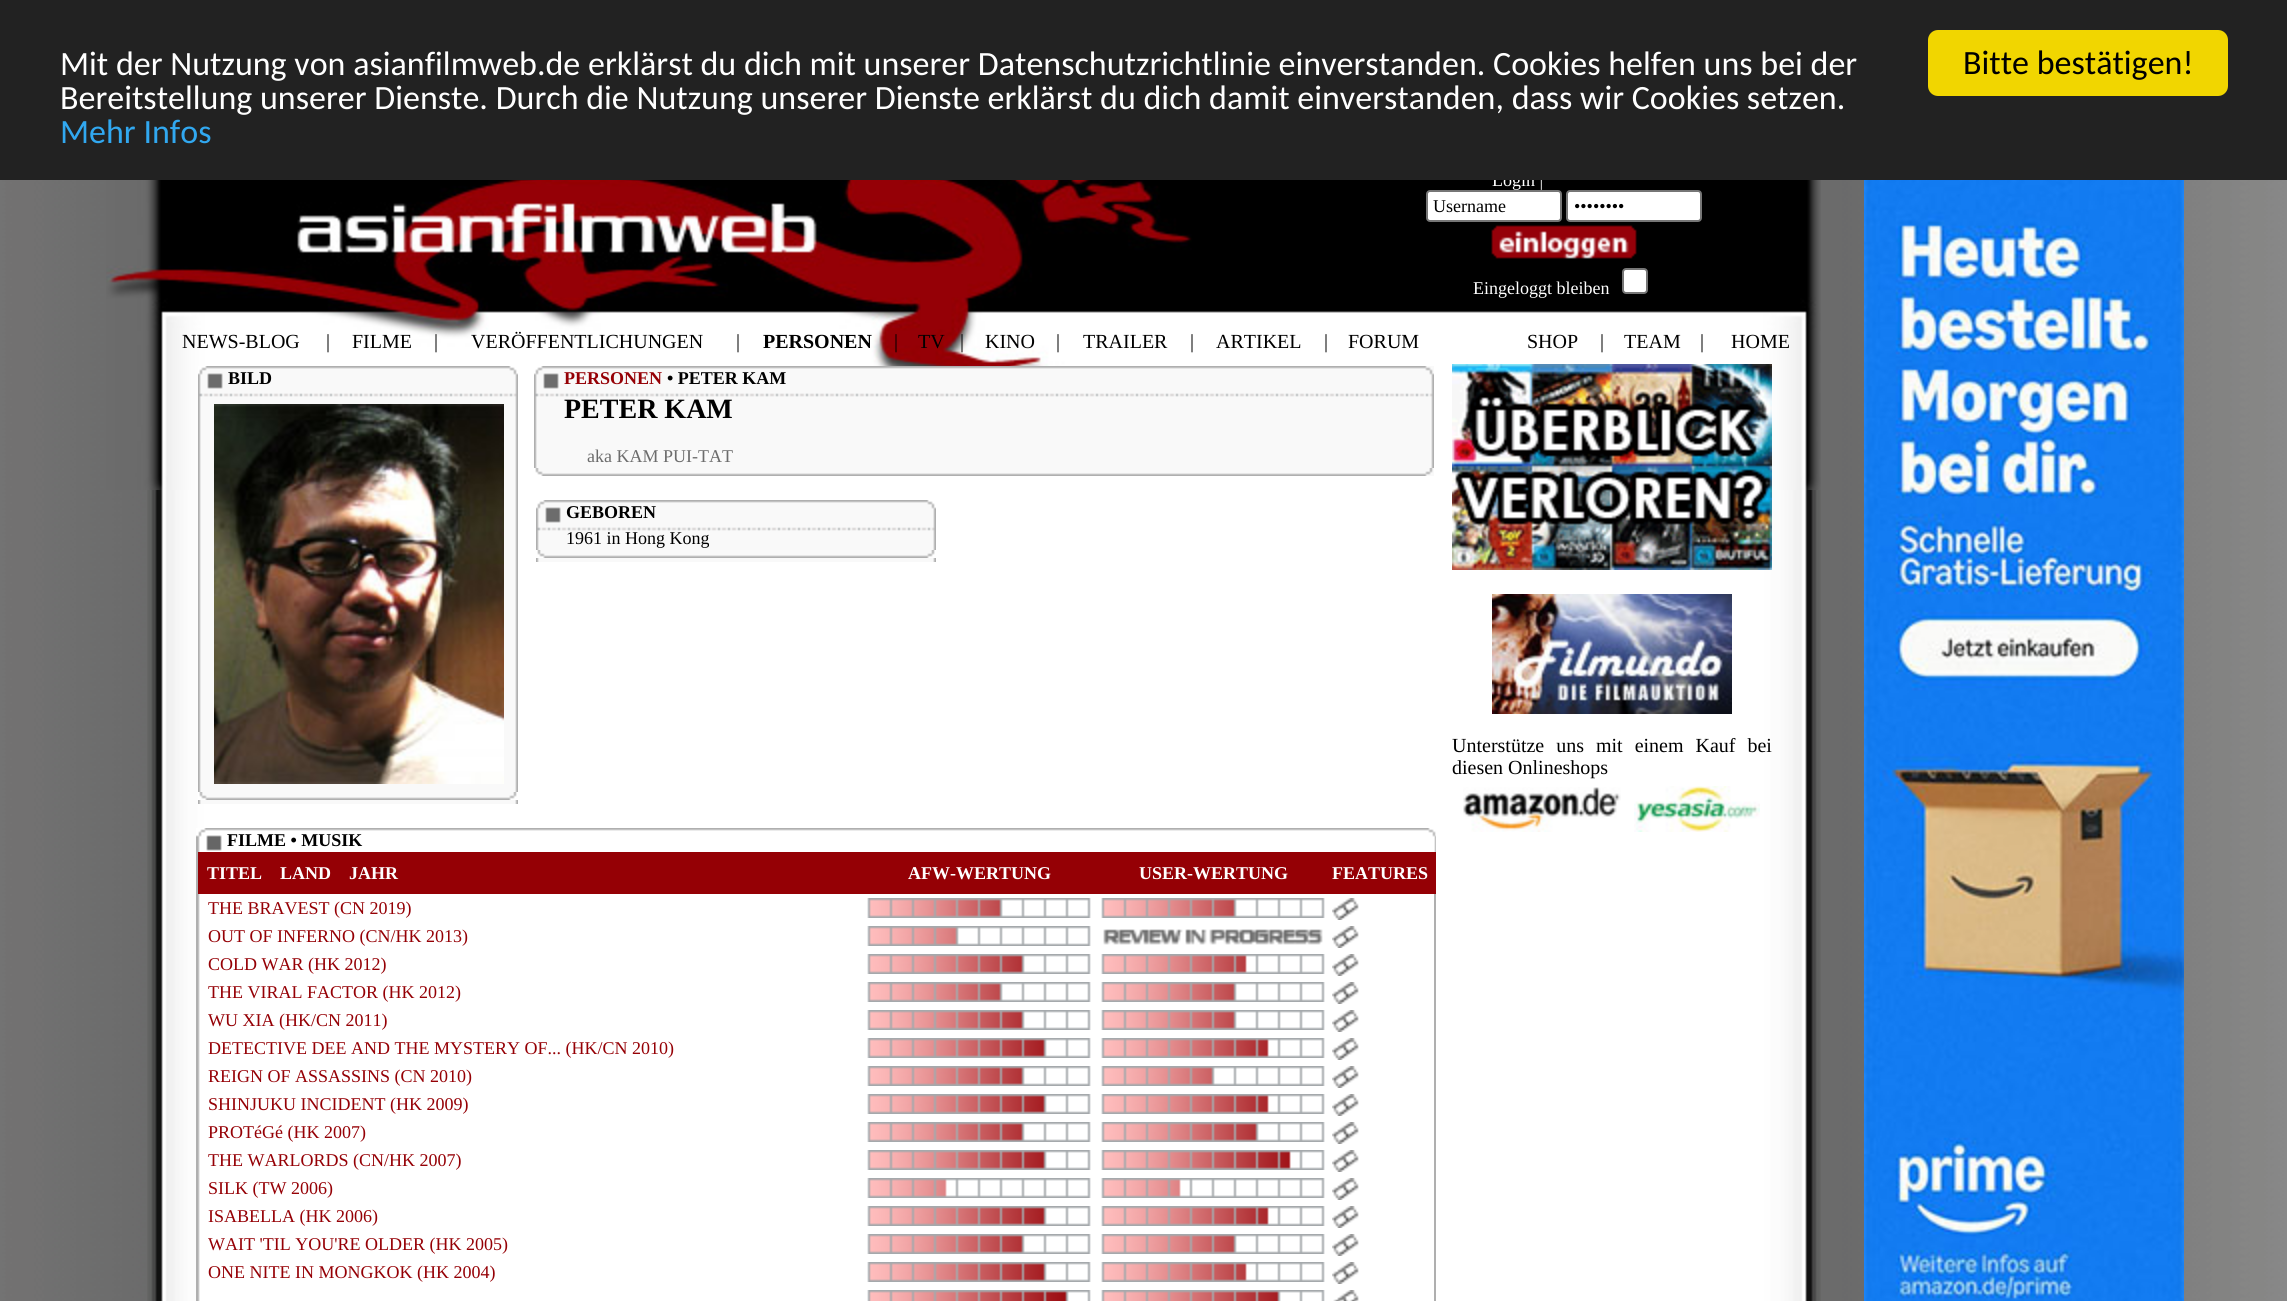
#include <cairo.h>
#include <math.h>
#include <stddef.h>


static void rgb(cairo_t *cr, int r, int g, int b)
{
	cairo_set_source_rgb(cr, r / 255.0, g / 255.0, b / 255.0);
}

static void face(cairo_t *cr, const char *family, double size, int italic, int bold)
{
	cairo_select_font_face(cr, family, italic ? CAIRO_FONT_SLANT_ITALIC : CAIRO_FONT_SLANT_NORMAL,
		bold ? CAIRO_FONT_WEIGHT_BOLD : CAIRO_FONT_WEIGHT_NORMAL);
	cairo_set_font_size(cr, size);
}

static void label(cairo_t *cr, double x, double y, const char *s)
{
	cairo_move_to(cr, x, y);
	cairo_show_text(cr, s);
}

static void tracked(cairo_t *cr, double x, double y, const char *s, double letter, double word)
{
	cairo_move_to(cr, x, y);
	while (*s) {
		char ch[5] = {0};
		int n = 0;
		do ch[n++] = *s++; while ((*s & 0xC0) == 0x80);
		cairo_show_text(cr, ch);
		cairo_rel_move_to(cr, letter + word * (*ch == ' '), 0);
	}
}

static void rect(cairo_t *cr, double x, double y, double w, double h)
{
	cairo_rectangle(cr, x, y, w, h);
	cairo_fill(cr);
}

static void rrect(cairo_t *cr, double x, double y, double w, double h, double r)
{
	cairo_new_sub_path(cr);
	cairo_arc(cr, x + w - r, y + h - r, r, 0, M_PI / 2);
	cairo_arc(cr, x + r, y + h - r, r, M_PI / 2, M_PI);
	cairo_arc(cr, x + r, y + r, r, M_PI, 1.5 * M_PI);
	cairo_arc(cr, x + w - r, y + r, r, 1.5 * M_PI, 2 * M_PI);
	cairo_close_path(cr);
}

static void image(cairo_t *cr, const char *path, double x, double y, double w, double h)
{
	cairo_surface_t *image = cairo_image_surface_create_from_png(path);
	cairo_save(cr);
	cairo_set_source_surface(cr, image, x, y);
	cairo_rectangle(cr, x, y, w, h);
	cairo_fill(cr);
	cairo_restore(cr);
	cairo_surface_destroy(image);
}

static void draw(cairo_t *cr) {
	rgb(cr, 255, 255, 255);
	cairo_paint(cr);
	image(cr, "image0.png", 0, 180, 2287, 1121);
	image(cr, "image2.png", 106, 180, 1715, 310);
	face(cr, "Liberation Serif", 18, 0, 0);
	rgb(cr, 255, 255, 255);
	label(cr, 1492, 186, "Login |");
	rgb(cr, 34, 34, 34);
	rect(cr, 0, 0, 2287, 180);
	face(cr, "Carlito", 34, 0, 0);
	rgb(cr, 255, 255, 255);
	label(cr, 60, 75, "Mit der Nutzung von asianfilmweb.de erklärst du dich mit unserer Datenschutzrichtlinie einverstanden. Cookies helfen uns bei der");
	label(cr, 60, 109, "Bereitstellung unserer Dienste. Durch die Nutzung unserer Dienste erklärst du dich damit einverstanden, dass wir Cookies setzen.");
	rgb(cr, 49, 168, 240);
	label(cr, 60, 143, "Mehr Infos");
	rgb(cr, 241, 214, 0);
	rrect(cr, 1928, 30, 300, 66, 10);
	cairo_fill(cr);
	rgb(cr, 0, 0, 0);
	label(cr, 1963, 74, "Bitte bestätigen!");
	image(cr, "image1.png", 147, 490, 1674, 811);
	rgb(cr, 255, 255, 255);
	rrect(cr, 1427, 191, 134, 30, 3);
	cairo_fill_preserve(cr);
	rgb(cr, 118, 118, 118);
	cairo_stroke(cr);
	face(cr, "Liberation Serif", 18, 0, 0);
	rgb(cr, 0, 0, 0);
	label(cr, 1433, 212, "Username");
	rgb(cr, 255, 255, 255);
	rrect(cr, 1567, 191, 134, 30, 3);
	cairo_fill_preserve(cr);
	rgb(cr, 118, 118, 118);
	cairo_stroke(cr);
	rgb(cr, 0, 0, 0);
	label(cr, 1574, 212, "••••••••");
	image(cr, "image3.png", 1491, 225, 146, 34);
	rgb(cr, 255, 255, 255);
	label(cr, 1473, 294, "Eingeloggt bleiben");
	rrect(cr, 1623, 269, 24, 24, 3);
	cairo_fill_preserve(cr);
	rgb(cr, 118, 118, 118);
	cairo_stroke(cr);
	image(cr, "image4.png", 198, 366, 320, 438);
	face(cr, "Liberation Serif", 18, 0, 1);
	rgb(cr, 0, 0, 0);
	label(cr, 228, 384, "BILD");
	image(cr, "image5.png", 214, 404, 290, 380);
	image(cr, "image6.png", 198, 792, 320, 8);
	image(cr, "image7.png", 534, 366, 900, 102);
	rgb(cr, 149, 0, 5);
	label(cr, 564, 384, "PERSONEN");
	rgb(cr, 0, 0, 0);
	label(cr, 667, 384, "• PETER KAM");
	face(cr, "Liberation Serif", 28, 0, 1);
	label(cr, 564, 418, "PETER KAM");
	face(cr, "Liberation Serif", 18, 0, 0);
	rgb(cr, 108, 108, 108);
	label(cr, 587, 462, "aka KAM PUI-TAT");
	image(cr, "image8.png", 534, 468, 900, 8);
	image(cr, "image9.png", 536, 500, 400, 62);
	face(cr, "Liberation Serif", 18, 0, 1);
	rgb(cr, 0, 0, 0);
	label(cr, 566, 518, "GEBOREN");
	face(cr, "Liberation Serif", 18, 0, 0);
	label(cr, 566, 544, "1961 in Hong Kong");
	image(cr, "image10.png", 536, 550, 400, 8);
	image(cr, "image11.png", 196, 828, 1240, 473);
	face(cr, "Liberation Serif", 18, 0, 1);
	label(cr, 227, 846, "FILME • MUSIK");
	rgb(cr, 149, 0, 5);
	rect(cr, 198, 852, 1238, 42);
	rgb(cr, 255, 255, 255);
	label(cr, 207, 879, "TITEL");
	label(cr, 280, 879, "LAND");
	label(cr, 349, 879, "JAHR");
	label(cr, 908, 879, "AFW-WERTUNG");
	label(cr, 1139, 879, "USER-WERTUNG");
	label(cr, 1332, 879, "FEATURES");
	face(cr, "Liberation Serif", 18, 0, 0);
	rgb(cr, 149, 0, 5);
	label(cr, 208, 914, "THE BRAVEST (CN 2019)");
	image(cr, "image12.png", 867, 898, 224, 20);
	image(cr, "image12.png", 1101, 898, 224, 20);
	image(cr, "image13.png", 1332, 898, 27, 22);
	label(cr, 208, 942, "OUT OF INFERNO (CN/HK 2013)");
	image(cr, "image14.png", 867, 926, 224, 20);
	image(cr, "image15.png", 1103, 929, 220, 16);
	image(cr, "image13.png", 1332, 926, 27, 22);
	label(cr, 208, 970, "COLD WAR (HK 2012)");
	image(cr, "image16.png", 867, 954, 224, 20);
	image(cr, "image17.png", 1101, 954, 224, 20);
	image(cr, "image13.png", 1332, 954, 27, 22);
	label(cr, 208, 998, "THE VIRAL FACTOR (HK 2012)");
	image(cr, "image12.png", 867, 982, 224, 20);
	image(cr, "image12.png", 1101, 982, 224, 20);
	image(cr, "image13.png", 1332, 982, 27, 22);
	label(cr, 208, 1026, "WU XIA (HK/CN 2011)");
	image(cr, "image16.png", 867, 1010, 224, 20);
	image(cr, "image12.png", 1101, 1010, 224, 20);
	image(cr, "image13.png", 1332, 1010, 27, 22);
	label(cr, 208, 1054, "DETECTIVE DEE AND THE MYSTERY OF... (HK/CN 2010)");
	image(cr, "image18.png", 867, 1038, 224, 20);
	image(cr, "image19.png", 1101, 1038, 224, 20);
	image(cr, "image13.png", 1332, 1038, 27, 22);
	label(cr, 208, 1082, "REIGN OF ASSASSINS (CN 2010)");
	image(cr, "image16.png", 867, 1066, 224, 20);
	image(cr, "image20.png", 1101, 1066, 224, 20);
	image(cr, "image13.png", 1332, 1066, 27, 22);
	label(cr, 208, 1110, "SHINJUKU INCIDENT (HK 2009)");
	image(cr, "image18.png", 867, 1094, 224, 20);
	image(cr, "image19.png", 1101, 1094, 224, 20);
	image(cr, "image13.png", 1332, 1094, 27, 22);
	label(cr, 208, 1138, "PROTéGé (HK 2007)");
	image(cr, "image16.png", 867, 1122, 224, 20);
	image(cr, "image16.png", 1101, 1122, 224, 20);
	image(cr, "image13.png", 1332, 1122, 27, 22);
	label(cr, 208, 1166, "THE WARLORDS (CN/HK 2007)");
	image(cr, "image18.png", 867, 1150, 224, 20);
	image(cr, "image21.png", 1101, 1150, 224, 20);
	image(cr, "image13.png", 1332, 1150, 27, 22);
	label(cr, 208, 1194, "SILK (TW 2006)");
	image(cr, "image22.png", 867, 1178, 224, 20);
	image(cr, "image22.png", 1101, 1178, 224, 20);
	image(cr, "image13.png", 1332, 1178, 27, 22);
	label(cr, 208, 1222, "ISABELLA (HK 2006)");
	image(cr, "image18.png", 867, 1206, 224, 20);
	image(cr, "image19.png", 1101, 1206, 224, 20);
	image(cr, "image13.png", 1332, 1206, 27, 22);
	label(cr, 208, 1250, "WAIT 'TIL YOU'RE OLDER (HK 2005)");
	image(cr, "image16.png", 867, 1234, 224, 20);
	image(cr, "image12.png", 1101, 1234, 224, 20);
	image(cr, "image13.png", 1332, 1234, 27, 22);
	label(cr, 208, 1278, "ONE NITE IN MONGKOK (HK 2004)");
	image(cr, "image18.png", 867, 1262, 224, 20);
	image(cr, "image17.png", 1101, 1262, 224, 20);
	image(cr, "image13.png", 1332, 1262, 27, 22);
	image(cr, "image23.png", 867, 1290, 224, 11);
	image(cr, "image24.png", 1101, 1290, 224, 11);
	image(cr, "image25.png", 1333, 1290, 26, 11);
	image(cr, "image26.png", 1452, 364, 320, 206);
	image(cr, "image27.png", 1492, 594, 240, 120);
	face(cr, "Liberation Serif", 20, 0, 0);
	rgb(cr, 0, 0, 0);
	tracked(cr, 1452, 752, "Unterstütze uns mit einem Kauf bei", 0, 7);
	label(cr, 1452, 774, "diesen Onlineshops");
	image(cr, "image28.png", 1463, 787, 158, 45);
	image(cr, "image29.png", 1634, 786, 126, 46);
	image(cr, "image30.png", 1864, 180, 320, 1121);
	label(cr, 182, 348, "NEWS-BLOG");
	label(cr, 326, 348, "|");
	label(cr, 352, 348, "FILME");
	label(cr, 434, 348, "|");
	label(cr, 471, 348, "VERÖFFENTLICHUNGEN");
	label(cr, 736, 348, "|");
	face(cr, "Liberation Serif", 20, 0, 1);
	label(cr, 763, 348, "PERSONEN");
	face(cr, "Liberation Serif", 20, 0, 0);
	label(cr, 894, 348, "|");
	label(cr, 918, 348, "TV");
	label(cr, 960, 348, "|");
	label(cr, 985, 348, "KINO");
	label(cr, 1056, 348, "|");
	label(cr, 1083, 348, "TRAILER");
	label(cr, 1190, 348, "|");
	label(cr, 1216, 348, "ARTIKEL");
	label(cr, 1324, 348, "|");
	label(cr, 1348, 348, "FORUM");
	label(cr, 1527, 348, "SHOP");
	label(cr, 1600, 348, "|");
	label(cr, 1624, 348, "TEAM");
	label(cr, 1700, 348, "|");
	label(cr, 1731, 348, "HOME");
}

int main(void) {
	cairo_surface_t *surface = cairo_image_surface_create(CAIRO_FORMAT_RGB24, 2287, 1301);
	cairo_t *cr = cairo_create(surface);
	cairo_font_options_t *options = cairo_font_options_create();
	cairo_font_options_set_hint_metrics(options, CAIRO_HINT_METRICS_OFF);
	cairo_font_options_set_hint_style(options, CAIRO_HINT_STYLE_NONE);
	cairo_set_font_options(cr, options);
	cairo_set_miter_limit(cr, 4);
	draw(cr);
	cairo_surface_write_to_png(surface, "render.png");
	cairo_font_options_destroy(options);
	cairo_destroy(cr);
	cairo_surface_destroy(surface);
	return 0;
}
